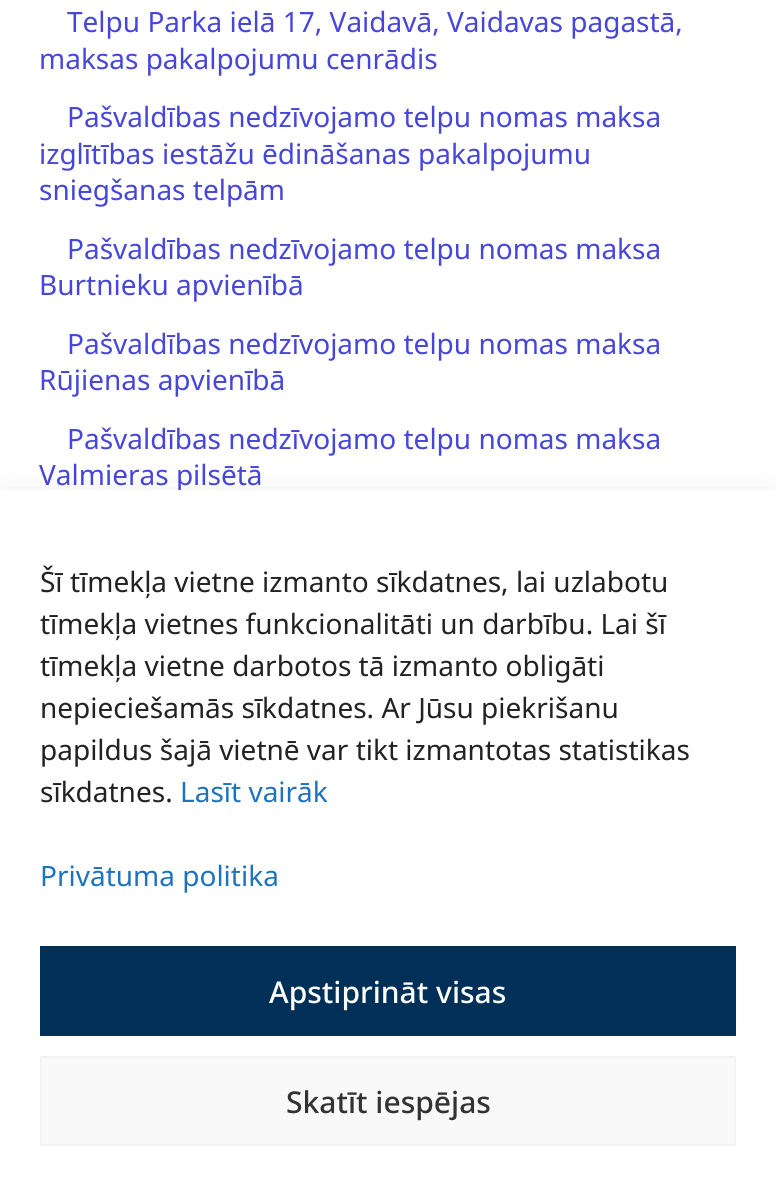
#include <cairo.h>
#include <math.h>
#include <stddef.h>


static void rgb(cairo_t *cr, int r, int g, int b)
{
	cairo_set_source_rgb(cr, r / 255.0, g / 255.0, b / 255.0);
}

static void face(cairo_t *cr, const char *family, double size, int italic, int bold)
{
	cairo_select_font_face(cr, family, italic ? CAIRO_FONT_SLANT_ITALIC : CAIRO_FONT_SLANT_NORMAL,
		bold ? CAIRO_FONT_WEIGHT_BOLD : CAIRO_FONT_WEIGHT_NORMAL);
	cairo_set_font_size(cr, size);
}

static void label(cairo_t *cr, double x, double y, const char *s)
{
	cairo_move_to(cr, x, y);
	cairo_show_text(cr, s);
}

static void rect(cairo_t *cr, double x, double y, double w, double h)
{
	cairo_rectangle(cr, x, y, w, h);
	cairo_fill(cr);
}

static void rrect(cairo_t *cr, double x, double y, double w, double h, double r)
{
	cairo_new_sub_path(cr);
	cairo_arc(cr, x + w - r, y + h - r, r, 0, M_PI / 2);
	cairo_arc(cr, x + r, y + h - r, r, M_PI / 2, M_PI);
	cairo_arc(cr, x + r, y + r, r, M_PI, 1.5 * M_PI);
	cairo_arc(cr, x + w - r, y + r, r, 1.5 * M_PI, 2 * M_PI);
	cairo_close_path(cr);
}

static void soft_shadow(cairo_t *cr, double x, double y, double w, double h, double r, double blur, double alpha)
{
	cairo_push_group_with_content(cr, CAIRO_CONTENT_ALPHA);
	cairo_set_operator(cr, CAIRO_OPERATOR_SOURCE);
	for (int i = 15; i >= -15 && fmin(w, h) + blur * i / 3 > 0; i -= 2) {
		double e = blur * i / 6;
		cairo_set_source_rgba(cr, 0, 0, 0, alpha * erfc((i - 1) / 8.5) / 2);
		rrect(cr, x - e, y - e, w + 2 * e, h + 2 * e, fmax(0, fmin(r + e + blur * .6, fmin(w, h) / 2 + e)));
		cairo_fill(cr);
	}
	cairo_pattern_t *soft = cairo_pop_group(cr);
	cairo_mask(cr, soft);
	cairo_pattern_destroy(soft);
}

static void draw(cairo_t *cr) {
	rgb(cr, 255, 255, 255);
	cairo_paint(cr);
	face(cr, "Noto Sans", 28, 0, 0);
	rgb(cr, 70, 70, 219);
	label(cr, 67, 32, "Telpu Parka ielā 17, Vaidavā, Vaidavas pagastā,");
	label(cr, 39, 69, "maksas pakalpojumu cenrādis");
	label(cr, 67, 127, "Pašvaldības nedzīvojamo telpu nomas maksa");
	label(cr, 39, 164, "izglītības iestāžu ēdināšanas pakalpojumu");
	label(cr, 39, 200, "sniegšanas telpām");
	label(cr, 67, 259, "Pašvaldības nedzīvojamo telpu nomas maksa");
	label(cr, 39, 295, "Burtnieku apvienībā");
	label(cr, 67, 354, "Pašvaldības nedzīvojamo telpu nomas maksa");
	label(cr, 39, 390, "Rūjienas apvienībā");
	label(cr, 67, 449, "Pašvaldības nedzīvojamo telpu nomas maksa");
	label(cr, 39, 485, "Valmieras pilsētā");
	rgb(cr, 0, 0, 0);
	soft_shadow(cr, 0, 510, 776, 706, 0, 20, 0.19);
	rgb(cr, 255, 255, 255);
	rect(cr, 0, 490, 776, 705);
	rgb(cr, 34, 34, 34);
	label(cr, 40, 592, "Šī tīmekļa vietne izmanto sīkdatnes, lai uzlabotu");
	label(cr, 40, 634, "tīmekļa vietnes funkcionalitāti un darbību. Lai šī");
	label(cr, 40, 676, "tīmekļa vietne darbotos tā izmanto obligāti");
	label(cr, 40, 718, "nepieciešamās sīkdatnes. Ar Jūsu piekrišanu");
	label(cr, 40, 760, "papildus šajā vietnē var tikt izmantotas statistikas");
	label(cr, 40, 802, "sīkdatnes.");
	rgb(cr, 30, 115, 190);
	label(cr, 180, 802, "Lasīt vairāk");
	label(cr, 40, 886, "Privātuma politika");
	rgb(cr, 0, 48, 87);
	rect(cr, 40, 946, 696, 90);
	face(cr, "Noto Sans Medium", 30, 0, 0);
	rgb(cr, 255, 255, 255);
	label(cr, 269, 1003, "Apstiprināt visas");
	rgb(cr, 249, 249, 249);
	cairo_rectangle(cr, 41, 1057, 694, 88);
	cairo_fill_preserve(cr);
	rgb(cr, 242, 242, 242);
	cairo_stroke(cr);
	rgb(cr, 51, 51, 51);
	label(cr, 286, 1113, "Skatīt iespējas");
}

int main(void) {
	cairo_surface_t *surface = cairo_image_surface_create(CAIRO_FORMAT_RGB24, 776, 1195);
	cairo_t *cr = cairo_create(surface);
	cairo_font_options_t *options = cairo_font_options_create();
	cairo_font_options_set_hint_metrics(options, CAIRO_HINT_METRICS_OFF);
	cairo_font_options_set_hint_style(options, CAIRO_HINT_STYLE_NONE);
	cairo_set_font_options(cr, options);
	cairo_set_miter_limit(cr, 4);
	draw(cr);
	cairo_surface_write_to_png(surface, "render.png");
	cairo_font_options_destroy(options);
	cairo_destroy(cr);
	cairo_surface_destroy(surface);
	return 0;
}
